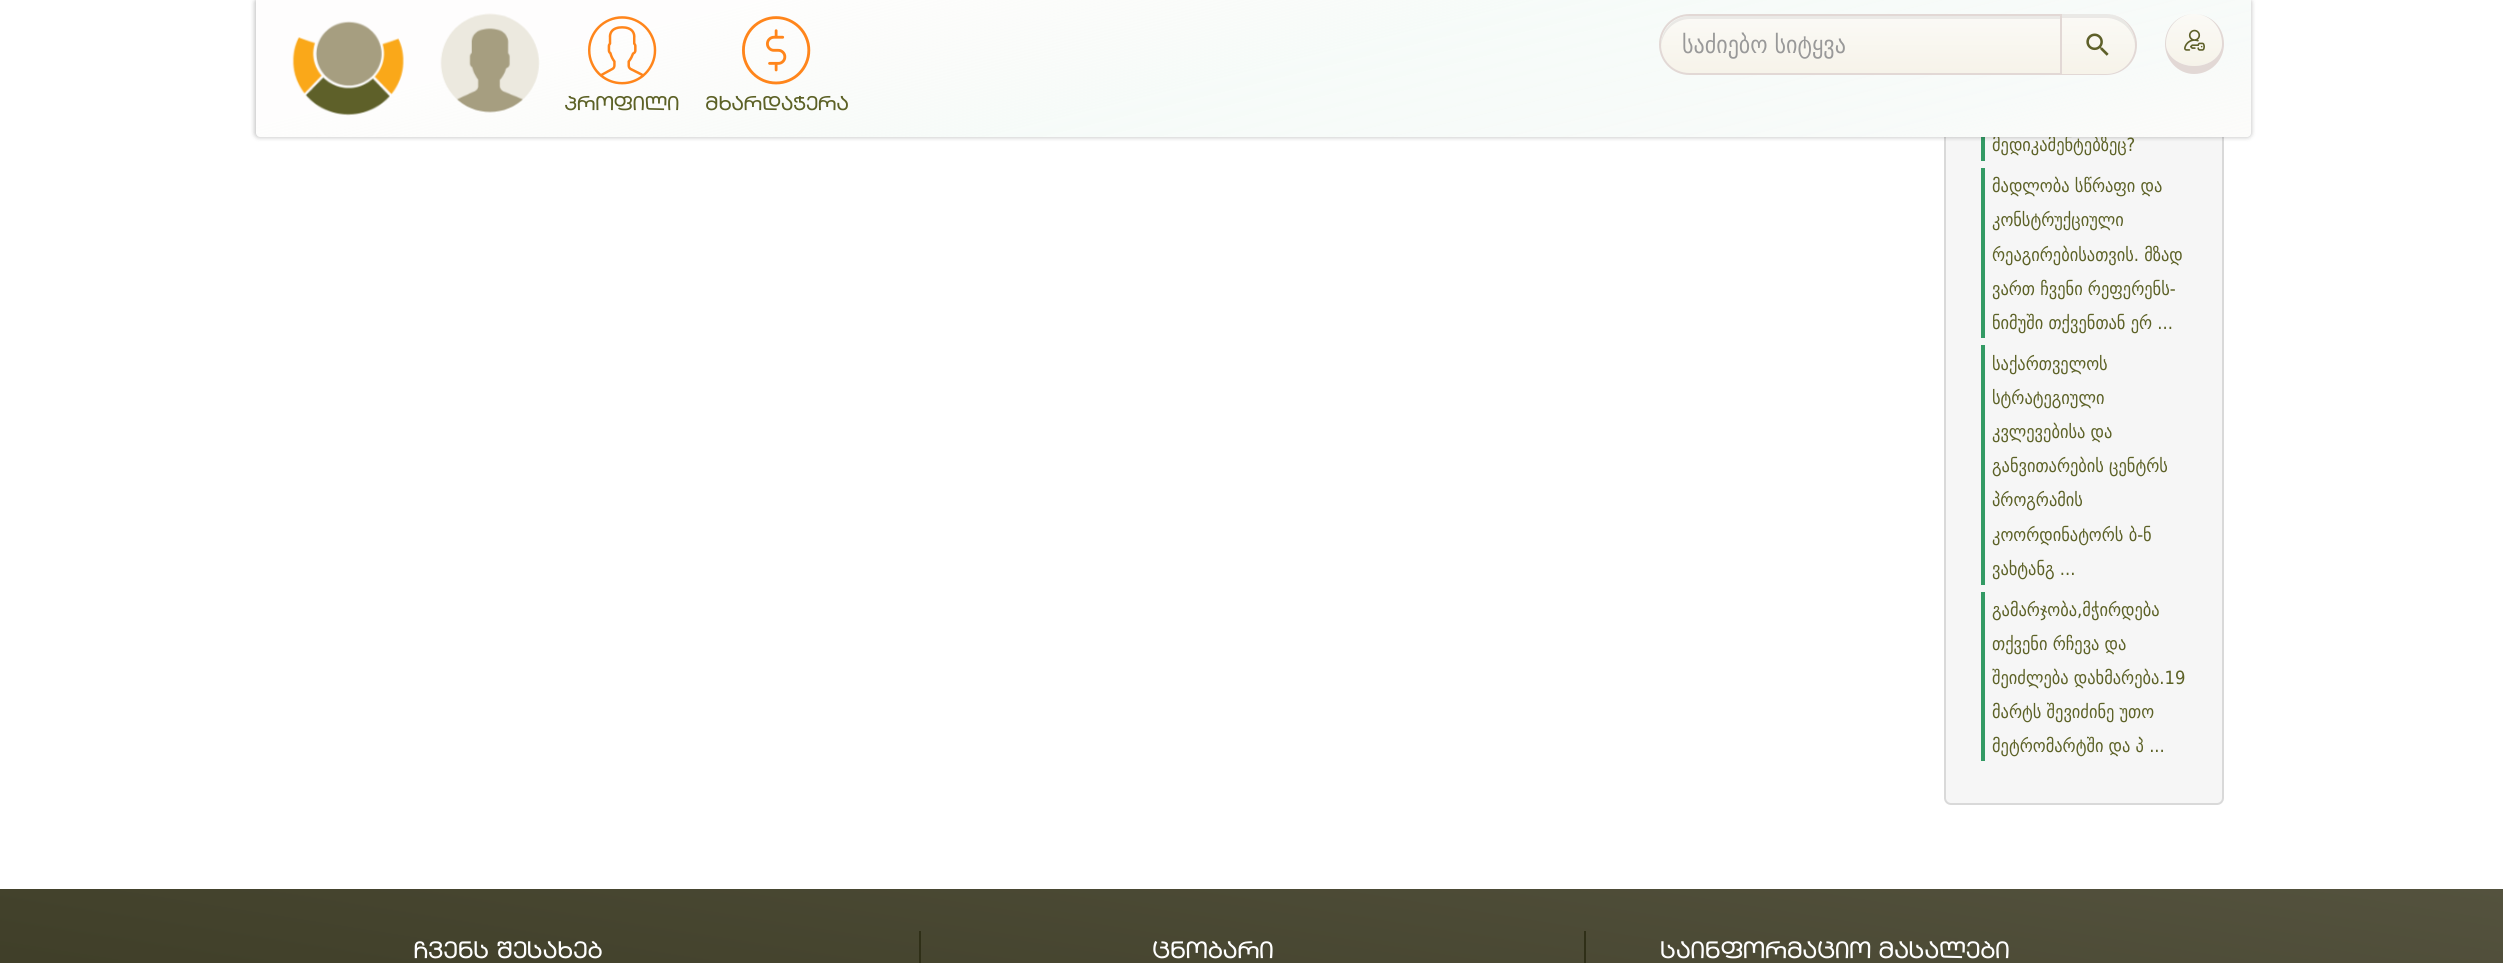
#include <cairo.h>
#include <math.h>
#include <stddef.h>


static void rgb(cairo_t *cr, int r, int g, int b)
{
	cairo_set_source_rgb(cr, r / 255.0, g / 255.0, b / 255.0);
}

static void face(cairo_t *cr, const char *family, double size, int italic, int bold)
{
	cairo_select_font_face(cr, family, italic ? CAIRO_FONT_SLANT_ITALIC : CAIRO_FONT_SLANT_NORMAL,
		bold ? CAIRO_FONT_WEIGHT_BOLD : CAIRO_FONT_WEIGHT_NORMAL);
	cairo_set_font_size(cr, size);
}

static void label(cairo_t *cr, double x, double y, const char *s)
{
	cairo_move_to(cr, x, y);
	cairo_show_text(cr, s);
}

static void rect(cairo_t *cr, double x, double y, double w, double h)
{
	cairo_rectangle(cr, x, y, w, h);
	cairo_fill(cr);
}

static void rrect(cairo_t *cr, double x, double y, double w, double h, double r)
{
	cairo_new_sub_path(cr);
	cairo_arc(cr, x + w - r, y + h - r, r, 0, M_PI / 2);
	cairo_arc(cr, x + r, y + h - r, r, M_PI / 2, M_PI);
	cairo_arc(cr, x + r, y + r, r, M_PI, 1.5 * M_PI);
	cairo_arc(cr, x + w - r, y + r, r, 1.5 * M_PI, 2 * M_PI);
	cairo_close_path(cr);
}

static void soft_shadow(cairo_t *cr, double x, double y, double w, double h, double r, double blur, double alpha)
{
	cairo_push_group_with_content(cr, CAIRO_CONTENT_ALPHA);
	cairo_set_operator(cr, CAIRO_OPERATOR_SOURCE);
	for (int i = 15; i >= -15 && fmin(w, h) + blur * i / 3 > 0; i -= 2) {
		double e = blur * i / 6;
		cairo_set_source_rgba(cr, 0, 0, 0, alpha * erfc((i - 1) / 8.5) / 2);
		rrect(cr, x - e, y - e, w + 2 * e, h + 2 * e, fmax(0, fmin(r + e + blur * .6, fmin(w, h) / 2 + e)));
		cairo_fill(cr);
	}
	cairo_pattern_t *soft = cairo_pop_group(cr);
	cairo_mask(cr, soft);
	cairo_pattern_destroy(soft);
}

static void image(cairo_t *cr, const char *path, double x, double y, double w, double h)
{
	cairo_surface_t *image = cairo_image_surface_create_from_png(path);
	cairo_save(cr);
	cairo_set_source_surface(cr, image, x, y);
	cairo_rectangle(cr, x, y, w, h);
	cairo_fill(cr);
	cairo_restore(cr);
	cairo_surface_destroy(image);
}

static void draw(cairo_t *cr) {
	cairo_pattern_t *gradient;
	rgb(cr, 255, 255, 255);
	cairo_paint(cr);
	rgb(cr, 246, 246, 246);
	rrect(cr, 1944, -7, 280, 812, 7);
	cairo_fill(cr);
	rrect(cr, 1945, -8, 278, 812, 6);
	cairo_set_source_rgba(cr, 0, 0, 0, 0.12);
	cairo_stroke(cr);
	rgb(cr, 51, 154, 100);
	rect(cr, 1981, 137, 4, 24);
	rgb(cr, 0, 0, 0);
	soft_shadow(cr, 254, -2, 1998, 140, 5, 2, 0.2);
	face(cr, "DejaVu Sans", 18.25, 0, 0);
	rgb(cr, 92, 97, 38);
	label(cr, 1992, 151, "მედიკამენტებზეც?");
	rgb(cr, 255, 255, 255);
	cairo_new_path(cr);
	cairo_move_to(cr, 256, 0);
	cairo_line_to(cr, 2251, 0);
	cairo_line_to(cr, 2251, 133);
	cairo_curve_to(cr, 2251, 135, 2249, 137, 2247, 137);
	cairo_line_to(cr, 260, 137);
	cairo_curve_to(cr, 258, 137, 256, 135, 256, 133);
	cairo_close_path(cr);
	cairo_fill(cr);
	gradient = cairo_pattern_create_linear(1179, -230, 1327, 367);
	cairo_pattern_add_color_stop_rgba(gradient, 0.2, 0.925, 0.914, 0.875, 0.07);
	cairo_pattern_add_color_stop_rgba(gradient, 0.5, 0.894, 0.953, 0.922, 0.32);
	cairo_pattern_add_color_stop_rgba(gradient, 0.85, 0.89, 0.937, 0.91, 0.26);
	cairo_pattern_add_color_stop_rgba(gradient, 1, 0.922, 0.914, 0.875, 0.15);
	cairo_set_source(cr, gradient);
	cairo_pattern_destroy(gradient);
	cairo_new_path(cr);
	cairo_move_to(cr, 256, 0);
	cairo_line_to(cr, 2251, 0);
	cairo_line_to(cr, 2251, 133);
	cairo_curve_to(cr, 2251, 135, 2249, 137, 2247, 137);
	cairo_line_to(cr, 260, 137);
	cairo_curve_to(cr, 258, 137, 256, 135, 256, 133);
	cairo_close_path(cr);
	cairo_fill(cr);
	image(cr, "image0.png", 292, 21, 112, 95);
	image(cr, "image1.png", 440, 13, 100, 100);
	gradient = cairo_pattern_create_linear(1860, 74, 1860, 16);
	cairo_pattern_add_color_stop_rgba(gradient, 0, 0.965, 0.953, 0.914, 1);
	cairo_pattern_add_color_stop_rgba(gradient, 1, 0.984, 0.98, 0.965, 1);
	cairo_set_source(cr, gradient);
	cairo_pattern_destroy(gradient);
	cairo_new_path(cr);
	cairo_move_to(cr, 1690, 16);
	cairo_line_to(cr, 2060, 16);
	cairo_line_to(cr, 2060, 74);
	cairo_line_to(cr, 1690, 74);
	cairo_curve_to(cr, 1674, 74, 1661, 61, 1661, 45);
	cairo_curve_to(cr, 1661, 29, 1674, 16, 1690, 16);
	cairo_close_path(cr);
	cairo_fill(cr);
	cairo_set_source_rgba(cr, 0, 0, 0, 0.07);
	cairo_new_path(cr);
	cairo_move_to(cr, 1690, 19);
	cairo_line_to(cr, 2060, 19);
	cairo_line_to(cr, 2060, 16);
	cairo_line_to(cr, 1690, 16);
	cairo_curve_to(cr, 1674, 16, 1660, 30, 1661, 47);
	cairo_curve_to(cr, 1662, 31, 1675, 19, 1690, 19);
	cairo_close_path(cr);
	cairo_fill(cr);
	cairo_new_path(cr);
	cairo_move_to(cr, 1689.5, 15);
	cairo_line_to(cr, 2061, 15);
	cairo_line_to(cr, 2061, 74);
	cairo_line_to(cr, 1689.5, 74);
	cairo_curve_to(cr, 1673, 74, 1660, 61, 1660, 44.5);
	cairo_curve_to(cr, 1660, 28, 1673, 15, 1689.5, 15);
	cairo_close_path(cr);
	rgb(cr, 226, 216, 213);
	cairo_stroke(cr);
	face(cr, "DejaVu Sans", 24.5, 0, 0);
	rgb(cr, 153, 153, 153);
	label(cr, 1682, 53, "საძიებო სიტყვა");
	gradient = cairo_pattern_create_linear(2098, 74, 2098, 14);
	cairo_pattern_add_color_stop_rgba(gradient, 0, 0.965, 0.953, 0.914, 1);
	cairo_pattern_add_color_stop_rgba(gradient, 1, 0.984, 0.98, 0.965, 1);
	cairo_set_source(cr, gradient);
	cairo_pattern_destroy(gradient);
	cairo_new_path(cr);
	cairo_move_to(cr, 2062, 14);
	cairo_line_to(cr, 2106, 14);
	cairo_curve_to(cr, 2122, 14, 2135, 28, 2135, 45);
	cairo_curve_to(cr, 2135, 61, 2122, 74, 2106, 74);
	cairo_line_to(cr, 2062, 74);
	cairo_close_path(cr);
	cairo_fill(cr);
	cairo_set_source_rgba(cr, 0, 0, 0, 0.07);
	cairo_new_path(cr);
	cairo_move_to(cr, 2062, 18);
	cairo_line_to(cr, 2106, 18);
	cairo_curve_to(cr, 2121, 18, 2134, 30, 2135, 46);
	cairo_line_to(cr, 2135, 45);
	cairo_curve_to(cr, 2135, 28, 2122, 14, 2106, 14);
	cairo_line_to(cr, 2062, 14);
	cairo_line_to(cr, 2062, 74);
	cairo_close_path(cr);
	cairo_fill(cr);
	rgb(cr, 226, 216, 213);
	cairo_set_fill_rule(cr, CAIRO_FILL_RULE_EVEN_ODD);
	cairo_new_path(cr);
	cairo_move_to(cr, 2060, 14);
	cairo_line_to(cr, 2106, 14);
	cairo_curve_to(cr, 2123, 14, 2137, 28, 2137, 45);
	cairo_curve_to(cr, 2137, 62, 2123, 75, 2106, 75);
	cairo_line_to(cr, 2060, 75);
	cairo_close_path(cr);
	cairo_move_to(cr, 2062, 14);
	cairo_line_to(cr, 2106, 14);
	cairo_curve_to(cr, 2122, 14, 2135, 28, 2135, 45);
	cairo_curve_to(cr, 2135, 61, 2122, 74, 2106, 74);
	cairo_line_to(cr, 2062, 74);
	cairo_close_path(cr);
	cairo_fill(cr);
	image(cr, "image2.png", 2086, 33, 23, 23);
	gradient = cairo_pattern_create_linear(2195, 67, 2195, 14);
	cairo_pattern_add_color_stop_rgba(gradient, 0, 0.965, 0.953, 0.914, 1);
	cairo_pattern_add_color_stop_rgba(gradient, 1, 0.984, 0.98, 0.965, 1);
	cairo_set_source(cr, gradient);
	cairo_pattern_destroy(gradient);
	cairo_set_fill_rule(cr, CAIRO_FILL_RULE_WINDING);
	cairo_new_path(cr);
	cairo_move_to(cr, 2194, 14);
	cairo_curve_to(cr, 2210, 14, 2222, 27, 2222, 44);
	cairo_curve_to(cr, 2222, 56, 2210, 66, 2194, 66);
	cairo_curve_to(cr, 2179, 66, 2166, 56, 2166, 44);
	cairo_curve_to(cr, 2166, 27, 2179, 14, 2194, 14);
	cairo_close_path(cr);
	cairo_fill(cr);
	rgb(cr, 226, 216, 213);
	cairo_set_fill_rule(cr, CAIRO_FILL_RULE_EVEN_ODD);
	cairo_new_path(cr);
	cairo_move_to(cr, 2194, 14);
	cairo_curve_to(cr, 2211, 14, 2224, 27, 2224, 44);
	cairo_curve_to(cr, 2224, 60, 2211, 74, 2194, 74);
	cairo_curve_to(cr, 2178, 74, 2165, 60, 2165, 44);
	cairo_curve_to(cr, 2165, 27, 2178, 14, 2194, 14);
	cairo_close_path(cr);
	cairo_move_to(cr, 2194, 14);
	cairo_curve_to(cr, 2210, 14, 2222, 27, 2222, 44);
	cairo_curve_to(cr, 2222, 56, 2210, 66, 2194, 66);
	cairo_curve_to(cr, 2179, 66, 2166, 56, 2166, 44);
	cairo_curve_to(cr, 2166, 27, 2179, 14, 2194, 14);
	cairo_close_path(cr);
	cairo_fill(cr);
	image(cr, "image3.png", 2184, 29, 21, 22);
	image(cr, "image4.png", 588, 16, 69, 69);
	face(cr, "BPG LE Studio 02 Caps", 18.25, 0, 1);
	rgb(cr, 92, 97, 38);
	label(cr, 564, 110, "პროფილი");
	image(cr, "image5.png", 742, 16, 69, 69);
	label(cr, 705, 110, "მხარდაჭერა");
	rgb(cr, 51, 154, 100);
	rect(cr, 1981, 168, 4, 170);
	face(cr, "DejaVu Sans", 18.25, 0, 0);
	rgb(cr, 92, 97, 38);
	label(cr, 1992, 192, "მადლობა სწრაფი და");
	label(cr, 1992, 226, "კონსტრუქციული");
	label(cr, 1992, 261, "რეაგირებისათვის. მზად");
	label(cr, 1992, 295, "ვართ ჩვენი რეფერენს-");
	label(cr, 1992, 329, "ნიმუში თქვენთან ერ ...");
	rgb(cr, 51, 154, 100);
	rect(cr, 1981, 345, 4, 240);
	rgb(cr, 92, 97, 38);
	label(cr, 1992, 370, "საქართველოს");
	label(cr, 1992, 404, "სტრატეგიული");
	label(cr, 1992, 438, "კვლევებისა და");
	label(cr, 1992, 472, "განვითარების ცენტრს");
	label(cr, 1992, 506, "პროგრამის");
	label(cr, 1992, 541, "კოორდინატორს ბ-ნ");
	label(cr, 1992, 575, "ვახტანგ ...");
	rgb(cr, 51, 154, 100);
	rect(cr, 1981, 592, 4, 169);
	rgb(cr, 92, 97, 38);
	label(cr, 1992, 616, "გამარჯობა,მჭირდება");
	label(cr, 1992, 650, "თქვენი რჩევა და");
	label(cr, 1992, 684, "შეიძლება დახმარება.19");
	label(cr, 1992, 718, "მარტს შევიძინე უთო");
	label(cr, 1992, 752, "მეტრომარტში და პ ...");
	gradient = cairo_pattern_create_linear(1186, 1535, 1318, 701);
	cairo_pattern_add_color_stop_rgba(gradient, 0, 0.184, 0.184, 0.09, 1);
	cairo_pattern_add_color_stop_rgba(gradient, 1, 0.329, 0.322, 0.243, 1);
	cairo_set_source(cr, gradient);
	cairo_pattern_destroy(gradient);
	rect(cr, 0, 889, 2503, 74);
	rgb(cr, 47, 47, 23);
	rect(cr, 919, 931, 2, 32);
	face(cr, "BPG LE Studio 02 Caps", 21.75, 0, 1);
	rgb(cr, 255, 255, 255);
	label(cr, 413, 958, "ჩვენს შესახებ");
	rgb(cr, 47, 47, 23);
	rect(cr, 1584, 931, 2, 32);
	rgb(cr, 255, 255, 255);
	label(cr, 1152, 958, "ცნობარი");
	label(cr, 1660, 958, "საინფორმაციო მასალები");
}

int main(void) {
	cairo_surface_t *surface = cairo_image_surface_create(CAIRO_FORMAT_RGB24, 2503, 963);
	cairo_t *cr = cairo_create(surface);
	cairo_font_options_t *options = cairo_font_options_create();
	cairo_font_options_set_hint_metrics(options, CAIRO_HINT_METRICS_OFF);
	cairo_font_options_set_hint_style(options, CAIRO_HINT_STYLE_NONE);
	cairo_set_font_options(cr, options);
	cairo_set_miter_limit(cr, 4);
	draw(cr);
	cairo_surface_write_to_png(surface, "render.png");
	cairo_font_options_destroy(options);
	cairo_destroy(cr);
	cairo_surface_destroy(surface);
	return 0;
}
